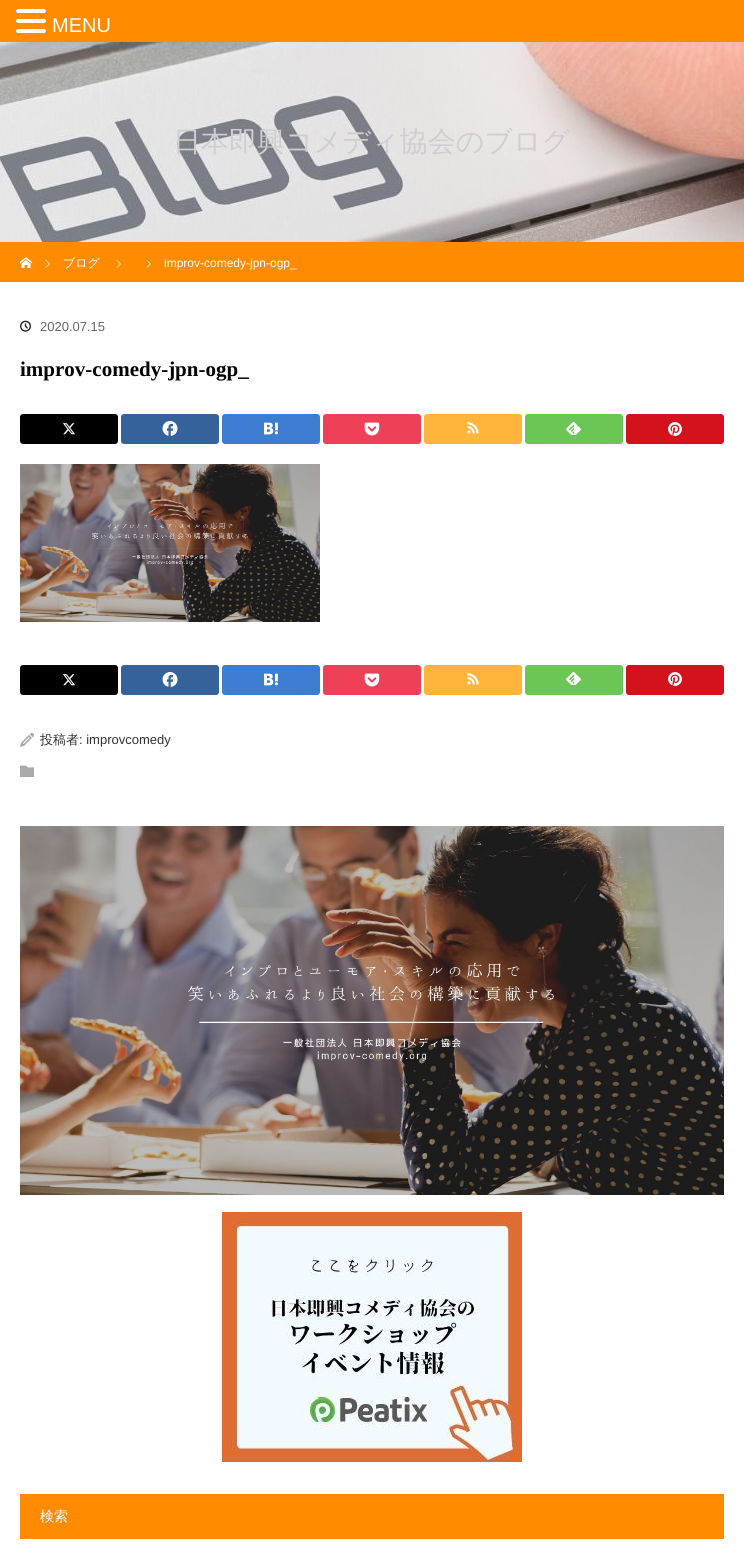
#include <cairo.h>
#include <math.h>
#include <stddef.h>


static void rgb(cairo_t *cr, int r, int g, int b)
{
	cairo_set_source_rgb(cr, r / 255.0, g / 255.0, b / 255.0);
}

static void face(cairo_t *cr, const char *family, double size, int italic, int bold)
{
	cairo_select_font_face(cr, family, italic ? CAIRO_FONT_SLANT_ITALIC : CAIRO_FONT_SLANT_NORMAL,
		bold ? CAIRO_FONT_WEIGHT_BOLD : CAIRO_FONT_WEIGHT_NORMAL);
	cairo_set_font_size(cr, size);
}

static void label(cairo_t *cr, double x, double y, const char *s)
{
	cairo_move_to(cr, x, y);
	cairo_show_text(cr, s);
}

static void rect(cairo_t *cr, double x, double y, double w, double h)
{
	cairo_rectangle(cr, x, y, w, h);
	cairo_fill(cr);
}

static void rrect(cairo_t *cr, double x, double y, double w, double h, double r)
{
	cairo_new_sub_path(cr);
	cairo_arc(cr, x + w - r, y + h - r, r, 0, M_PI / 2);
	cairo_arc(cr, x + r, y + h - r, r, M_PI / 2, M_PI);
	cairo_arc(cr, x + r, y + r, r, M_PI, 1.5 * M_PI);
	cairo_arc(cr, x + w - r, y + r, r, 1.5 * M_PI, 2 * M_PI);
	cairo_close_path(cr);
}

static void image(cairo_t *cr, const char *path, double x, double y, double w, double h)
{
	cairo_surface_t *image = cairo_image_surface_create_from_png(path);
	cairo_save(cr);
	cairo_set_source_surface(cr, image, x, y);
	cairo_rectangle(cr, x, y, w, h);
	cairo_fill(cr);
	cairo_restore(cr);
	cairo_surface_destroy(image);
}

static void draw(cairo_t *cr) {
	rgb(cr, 255, 255, 255);
	cairo_paint(cr);
	rgb(cr, 255, 140, 0);
	rect(cr, 0, 0, 744, 42);
	rgb(cr, 255, 255, 255);
	rrect(cr, 16, 9, 30, 4, 2);
	cairo_fill(cr);
	rrect(cr, 16, 19, 30, 4, 2);
	cairo_fill(cr);
	rrect(cr, 16, 29, 30, 4, 2);
	cairo_fill(cr);
	face(cr, "Liberation Sans", 20, 0, 0);
	label(cr, 52, 32, "MENU");
	image(cr, "image0.png", 0, 42, 744, 200);
	face(cr, "WenQuanYi Zen Hei Medium", 28, 0, 0);
	rgb(cr, 207, 206, 208);
	label(cr, 173, 151, "日本即興コメディ協会のブログ");
	rgb(cr, 255, 140, 0);
	rect(cr, 0, 242, 744, 40);
	image(cr, "image1.png", 20, 257, 12, 11);
	image(cr, "image2.png", 45, 260, 5, 8);
	face(cr, "WenQuanYi Zen Hei Medium", 12, 0, 0);
	rgb(cr, 255, 255, 255);
	label(cr, 63, 267, "ブログ");
	image(cr, "image2.png", 116, 260, 5, 8);
	image(cr, "image2.png", 146, 260, 5, 8);
	face(cr, "Liberation Sans", 12, 0, 0);
	label(cr, 164, 267, "improv-comedy-jpn-ogp_");
	image(cr, "image3.png", 20, 320, 11, 12);
	face(cr, "Liberation Sans", 13, 0, 0);
	rgb(cr, 102, 102, 102);
	label(cr, 40, 331, "2020.07.15");
	face(cr, "Liberation Serif", 21, 0, 1);
	rgb(cr, 0, 0, 0);
	label(cr, 20, 376, "improv-comedy-jpn-ogp_");
	rrect(cr, 20, 414, 98, 30, 3);
	cairo_fill(cr);
	image(cr, "image4.png", 63, 423, 12, 12);
	rgb(cr, 53, 98, 154);
	rrect(cr, 121, 414, 98, 30, 3);
	cairo_fill(cr);
	image(cr, "image5.png", 162, 421, 16, 15);
	rgb(cr, 60, 125, 209);
	rrect(cr, 222, 414, 98, 30, 3);
	cairo_fill(cr);
	image(cr, "image6.png", 264, 422, 14, 13);
	rgb(cr, 238, 64, 86);
	rrect(cr, 323, 414, 98, 30, 3);
	cairo_fill(cr);
	image(cr, "image7.png", 364, 422, 16, 14);
	rgb(cr, 255, 181, 60);
	rrect(cr, 424, 414, 98, 30, 3);
	cairo_fill(cr);
	image(cr, "image8.png", 467, 422, 12, 12);
	rgb(cr, 108, 198, 85);
	rrect(cr, 525, 414, 98, 30, 3);
	cairo_fill(cr);
	image(cr, "image9.png", 566, 421, 15, 14);
	rgb(cr, 212, 18, 28);
	rrect(cr, 626, 414, 98, 30, 3);
	cairo_fill(cr);
	image(cr, "image10.png", 668, 422, 14, 14);
	image(cr, "image11.png", 20, 464, 300, 158);
	rgb(cr, 0, 0, 0);
	rrect(cr, 20, 665, 98, 30, 3);
	cairo_fill(cr);
	image(cr, "image4.png", 63, 674, 12, 12);
	rgb(cr, 53, 98, 154);
	rrect(cr, 121, 665, 98, 30, 3);
	cairo_fill(cr);
	image(cr, "image5.png", 162, 672, 16, 15);
	rgb(cr, 60, 125, 209);
	rrect(cr, 222, 665, 98, 30, 3);
	cairo_fill(cr);
	image(cr, "image6.png", 264, 673, 14, 13);
	rgb(cr, 238, 64, 86);
	rrect(cr, 323, 665, 98, 30, 3);
	cairo_fill(cr);
	image(cr, "image7.png", 364, 673, 16, 14);
	rgb(cr, 255, 181, 60);
	rrect(cr, 424, 665, 98, 30, 3);
	cairo_fill(cr);
	image(cr, "image8.png", 467, 673, 12, 12);
	rgb(cr, 108, 198, 85);
	rrect(cr, 525, 665, 98, 30, 3);
	cairo_fill(cr);
	image(cr, "image9.png", 566, 671, 15, 14);
	rgb(cr, 212, 18, 28);
	rrect(cr, 626, 665, 98, 30, 3);
	cairo_fill(cr);
	image(cr, "image10.png", 668, 672, 14, 14);
	image(cr, "image12.png", 20, 732, 14, 15);
	face(cr, "WenQuanYi Zen Hei Medium", 13, 0, 0);
	rgb(cr, 51, 51, 51);
	label(cr, 40, 744, "投稿者");
	face(cr, "Liberation Sans", 13, 0, 0);
	label(cr, 79, 744, ": improvcomedy");
	image(cr, "image13.png", 20, 765, 14, 12);
	image(cr, "image14.png", 20, 826, 704, 369);
	image(cr, "image15.png", 222, 1212, 300, 250);
	rgb(cr, 255, 140, 0);
	rect(cr, 20, 1494, 704, 45);
	face(cr, "WenQuanYi Zen Hei Medium", 14, 0, 0);
	rgb(cr, 255, 255, 255);
	label(cr, 40, 1521, "検索");
}

int main(void) {
	cairo_surface_t *surface = cairo_image_surface_create(CAIRO_FORMAT_RGB24, 744, 1558);
	cairo_t *cr = cairo_create(surface);
	cairo_font_options_t *options = cairo_font_options_create();
	cairo_font_options_set_hint_metrics(options, CAIRO_HINT_METRICS_OFF);
	cairo_font_options_set_hint_style(options, CAIRO_HINT_STYLE_NONE);
	cairo_set_font_options(cr, options);
	cairo_set_miter_limit(cr, 4);
	draw(cr);
	cairo_surface_write_to_png(surface, "render.png");
	cairo_font_options_destroy(options);
	cairo_destroy(cr);
	cairo_surface_destroy(surface);
	return 0;
}
